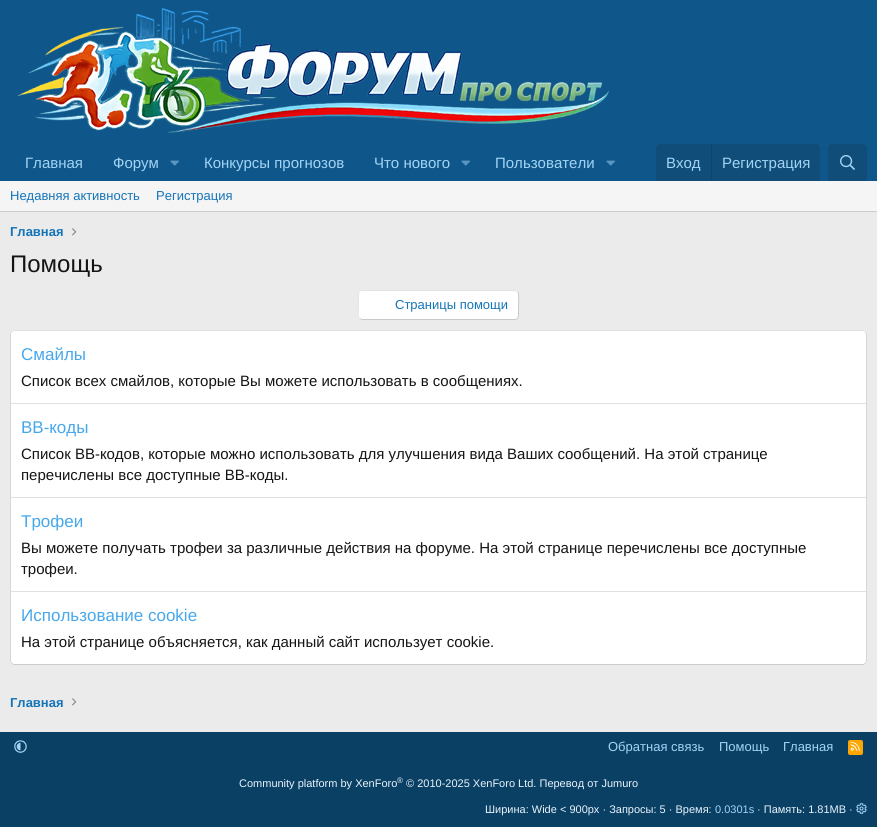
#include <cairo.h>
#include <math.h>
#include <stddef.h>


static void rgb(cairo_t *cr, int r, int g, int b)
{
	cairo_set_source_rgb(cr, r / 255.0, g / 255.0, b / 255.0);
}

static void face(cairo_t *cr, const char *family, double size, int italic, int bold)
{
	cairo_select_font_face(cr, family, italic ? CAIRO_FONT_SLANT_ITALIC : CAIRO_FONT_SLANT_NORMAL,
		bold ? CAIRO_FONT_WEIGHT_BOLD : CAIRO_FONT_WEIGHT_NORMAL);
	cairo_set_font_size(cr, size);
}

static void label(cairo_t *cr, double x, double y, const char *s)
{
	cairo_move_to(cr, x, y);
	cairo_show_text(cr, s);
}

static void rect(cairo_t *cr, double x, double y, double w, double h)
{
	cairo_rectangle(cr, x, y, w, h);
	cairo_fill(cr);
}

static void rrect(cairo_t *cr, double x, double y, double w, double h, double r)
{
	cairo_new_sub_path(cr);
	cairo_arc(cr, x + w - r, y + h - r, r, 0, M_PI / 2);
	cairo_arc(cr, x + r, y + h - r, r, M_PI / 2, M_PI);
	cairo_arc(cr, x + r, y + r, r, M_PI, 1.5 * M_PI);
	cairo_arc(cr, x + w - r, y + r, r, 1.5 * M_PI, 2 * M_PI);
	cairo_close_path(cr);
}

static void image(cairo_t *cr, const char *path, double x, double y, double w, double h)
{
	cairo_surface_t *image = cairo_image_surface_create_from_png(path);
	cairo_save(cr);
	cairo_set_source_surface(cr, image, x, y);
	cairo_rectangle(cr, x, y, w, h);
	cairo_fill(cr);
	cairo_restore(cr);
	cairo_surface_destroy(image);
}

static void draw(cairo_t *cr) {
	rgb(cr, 235, 235, 235);
	cairo_paint(cr);
	rgb(cr, 15, 87, 138);
	rect(cr, 0, 0, 877, 181);
	image(cr, "image0.png", 17, 8, 592, 125);
	face(cr, "Liberation Sans", 15, 0, 0);
	rgb(cr, 163, 212, 245);
	label(cr, 25, 168, "Главная");
	label(cr, 113, 168, "Форум");
	image(cr, "image1.png", 170, 160, 9, 6);
	label(cr, 204, 168, "Конкурсы прогнозов");
	label(cr, 374, 168, "Что нового");
	image(cr, "image1.png", 461, 160, 9, 6);
	label(cr, 495, 168, "Пользователи");
	image(cr, "image1.png", 606, 160, 9, 6);
	rgb(cr, 16, 77, 120);
	cairo_new_path(cr);
	cairo_move_to(cr, 660, 144);
	cairo_line_to(cr, 816, 144);
	cairo_curve_to(cr, 818, 144, 820, 146, 820, 148);
	cairo_line_to(cr, 820, 181);
	cairo_line_to(cr, 656, 181);
	cairo_line_to(cr, 656, 148);
	cairo_curve_to(cr, 656, 146, 658, 144, 660, 144);
	cairo_close_path(cr);
	cairo_fill(cr);
	rgb(cr, 163, 212, 245);
	label(cr, 666, 168, "Вход");
	rgb(cr, 17, 68, 105);
	rect(cr, 711, 144, 1, 37);
	rgb(cr, 163, 212, 245);
	label(cr, 722, 168, "Регистрация");
	rgb(cr, 16, 77, 120);
	cairo_new_path(cr);
	cairo_move_to(cr, 832, 144);
	cairo_line_to(cr, 863, 144);
	cairo_curve_to(cr, 865, 144, 867, 146, 867, 148);
	cairo_line_to(cr, 867, 181);
	cairo_line_to(cr, 828, 181);
	cairo_line_to(cr, 828, 148);
	cairo_curve_to(cr, 828, 146, 830, 144, 832, 144);
	cairo_close_path(cr);
	cairo_fill(cr);
	image(cr, "image2.png", 840, 155, 15, 15);
	rgb(cr, 245, 245, 245);
	rect(cr, 0, 181, 877, 30);
	rgb(cr, 204, 204, 204);
	rect(cr, 0, 211, 877, 1);
	face(cr, "Liberation Sans", 13, 0, 0);
	rgb(cr, 20, 116, 184);
	label(cr, 10, 200, "Недавняя активность");
	label(cr, 156, 200, "Регистрация");
	face(cr, "Liberation Sans", 13, 0, 1);
	label(cr, 10, 236, "Главная");
	image(cr, "image3.png", 72, 228, 5, 8);
	face(cr, "Liberation Sans", 24, 0, 0);
	rgb(cr, 20, 20, 20);
	label(cr, 10, 272, "Помощь");
	rgb(cr, 255, 255, 255);
	rrect(cr, 358, 290, 161, 30, 4);
	cairo_fill(cr);
	cairo_new_path(cr);
	cairo_move_to(cr, 517.5, 291.5);
	cairo_curve_to(cr, 519.5, 293.5, 518.5, 302, 518.5, 305);
	cairo_line_to(cr, 518.5, 312.5);
	cairo_curve_to(cr, 518.5, 315, 519, 319.5, 515, 319.5);
	cairo_line_to(cr, 362, 319.5);
	cairo_line_to(cr, 359.5, 318.5);
	rgb(cr, 201, 201, 201);
	cairo_set_line_width(cr, 1);
	cairo_stroke(cr);
	cairo_new_path(cr);
	cairo_move_to(cr, 359.5, 318.5);
	cairo_curve_to(cr, 357.5, 316.5, 358.5, 308, 358.5, 305);
	cairo_line_to(cr, 358.5, 297.5);
	cairo_curve_to(cr, 358.5, 295, 358, 290.5, 362, 290.5);
	cairo_line_to(cr, 515, 290.5);
	cairo_line_to(cr, 517.5, 291.5);
	rgb(cr, 227, 227, 227);
	cairo_stroke(cr);
	face(cr, "Liberation Sans", 13, 0, 0);
	rgb(cr, 20, 116, 184);
	label(cr, 395, 309, "Страницы помощи");
	rgb(cr, 255, 255, 255);
	rrect(cr, 10, 330, 857, 335, 4);
	cairo_fill(cr);
	cairo_new_path(cr);
	cairo_move_to(cr, 11.5, 331.5);
	cairo_line_to(cr, 14, 330.5);
	cairo_line_to(cr, 863, 330.5);
	cairo_line_to(cr, 865.5, 331.5);
	rgb(cr, 224, 224, 224);
	cairo_stroke(cr);
	cairo_new_path(cr);
	cairo_move_to(cr, 865.5, 331.5);
	cairo_line_to(cr, 866.5, 334);
	cairo_line_to(cr, 866.5, 661);
	cairo_line_to(cr, 865.5, 663.5);
	rgb(cr, 214, 214, 214);
	cairo_stroke(cr);
	cairo_new_path(cr);
	cairo_move_to(cr, 865.5, 663.5);
	cairo_line_to(cr, 863, 664.5);
	cairo_line_to(cr, 14, 664.5);
	cairo_line_to(cr, 11.5, 663.5);
	rgb(cr, 204, 204, 204);
	cairo_stroke(cr);
	cairo_new_path(cr);
	cairo_move_to(cr, 11.5, 663.5);
	cairo_line_to(cr, 10.5, 661);
	cairo_line_to(cr, 10.5, 334);
	cairo_line_to(cr, 11.5, 331.5);
	rgb(cr, 214, 214, 214);
	cairo_stroke(cr);
	face(cr, "Liberation Sans", 17, 0, 0);
	rgb(cr, 71, 167, 235);
	label(cr, 21, 360, "Смайлы");
	face(cr, "Liberation Sans", 15, 0, 0);
	rgb(cr, 20, 20, 20);
	label(cr, 21, 386, "Список всех смайлов, которые Вы можете использовать в сообщениях.");
	rgb(cr, 224, 224, 224);
	rect(cr, 11, 403, 855, 1);
	face(cr, "Liberation Sans", 17, 0, 0);
	rgb(cr, 71, 167, 235);
	label(cr, 21, 433, "BB-коды");
	face(cr, "Liberation Sans", 15, 0, 0);
	rgb(cr, 20, 20, 20);
	label(cr, 21, 459, "Список BB-кодов, которые можно использовать для улучшения вида Ваших сообщений. На этой странице");
	label(cr, 21, 480, "перечислены все доступные BB-коды.");
	rgb(cr, 224, 224, 224);
	rect(cr, 11, 497, 855, 1);
	face(cr, "Liberation Sans", 17, 0, 0);
	rgb(cr, 71, 167, 235);
	label(cr, 21, 527, "Трофеи");
	face(cr, "Liberation Sans", 15, 0, 0);
	rgb(cr, 20, 20, 20);
	label(cr, 21, 553, "Вы можете получать трофеи за различные действия на форуме. На этой странице перечислены все доступные");
	label(cr, 21, 574, "трофеи.");
	rgb(cr, 224, 224, 224);
	rect(cr, 11, 591, 855, 1);
	face(cr, "Liberation Sans", 17, 0, 0);
	rgb(cr, 71, 167, 235);
	label(cr, 21, 621, "Использование cookie");
	face(cr, "Liberation Sans", 15, 0, 0);
	rgb(cr, 20, 20, 20);
	label(cr, 21, 647, "На этой странице объясняется, как данный сайт использует cookie.");
	face(cr, "Liberation Sans", 13, 0, 1);
	rgb(cr, 20, 116, 184);
	label(cr, 10, 707, "Главная");
	image(cr, "image3.png", 72, 698, 5, 8);
	rgb(cr, 11, 64, 101);
	rect(cr, 0, 732, 877, 95);
	image(cr, "image4.png", 14, 740, 13, 13);
	face(cr, "Liberation Sans", 13, 0, 0);
	rgb(cr, 163, 212, 245);
	label(cr, 608, 751, "Обратная связь");
	label(cr, 719, 751, "Помощь");
	label(cr, 783, 751, "Главная");
	rgb(cr, 255, 165, 0);
	rrect(cr, 848, 740, 15, 15, 2);
	cairo_fill(cr);
	image(cr, "image5.png", 850, 741, 10, 10);
	face(cr, "Liberation Sans", 11, 0, 0);
	rgb(cr, 232, 244, 252);
	label(cr, 239, 787, "Community platform by XenForo");
	face(cr, "Liberation Sans", 8, 0, 0);
	label(cr, 397, 783, "®");
	face(cr, "Liberation Sans", 11, 0, 0);
	label(cr, 406, 787, "© 2010-2025 XenForo Ltd. Перевод от Jumuro");
	label(cr, 485, 813, "Ширина: Wide < 900px · Запросы: 5 · Время:");
	rgb(cr, 163, 212, 245);
	label(cr, 715, 813, "0.0301s");
	rgb(cr, 232, 244, 252);
	label(cr, 757, 813, "· Память: 1.81MB ·");
	image(cr, "image6.png", 856, 803, 11, 11);
}

int main(void) {
	cairo_surface_t *surface = cairo_image_surface_create(CAIRO_FORMAT_RGB24, 877, 827);
	cairo_t *cr = cairo_create(surface);
	cairo_font_options_t *options = cairo_font_options_create();
	cairo_font_options_set_hint_metrics(options, CAIRO_HINT_METRICS_OFF);
	cairo_font_options_set_hint_style(options, CAIRO_HINT_STYLE_NONE);
	cairo_set_font_options(cr, options);
	cairo_set_miter_limit(cr, 4);
	draw(cr);
	cairo_surface_write_to_png(surface, "render.png");
	cairo_font_options_destroy(options);
	cairo_destroy(cr);
	cairo_surface_destroy(surface);
	return 0;
}
